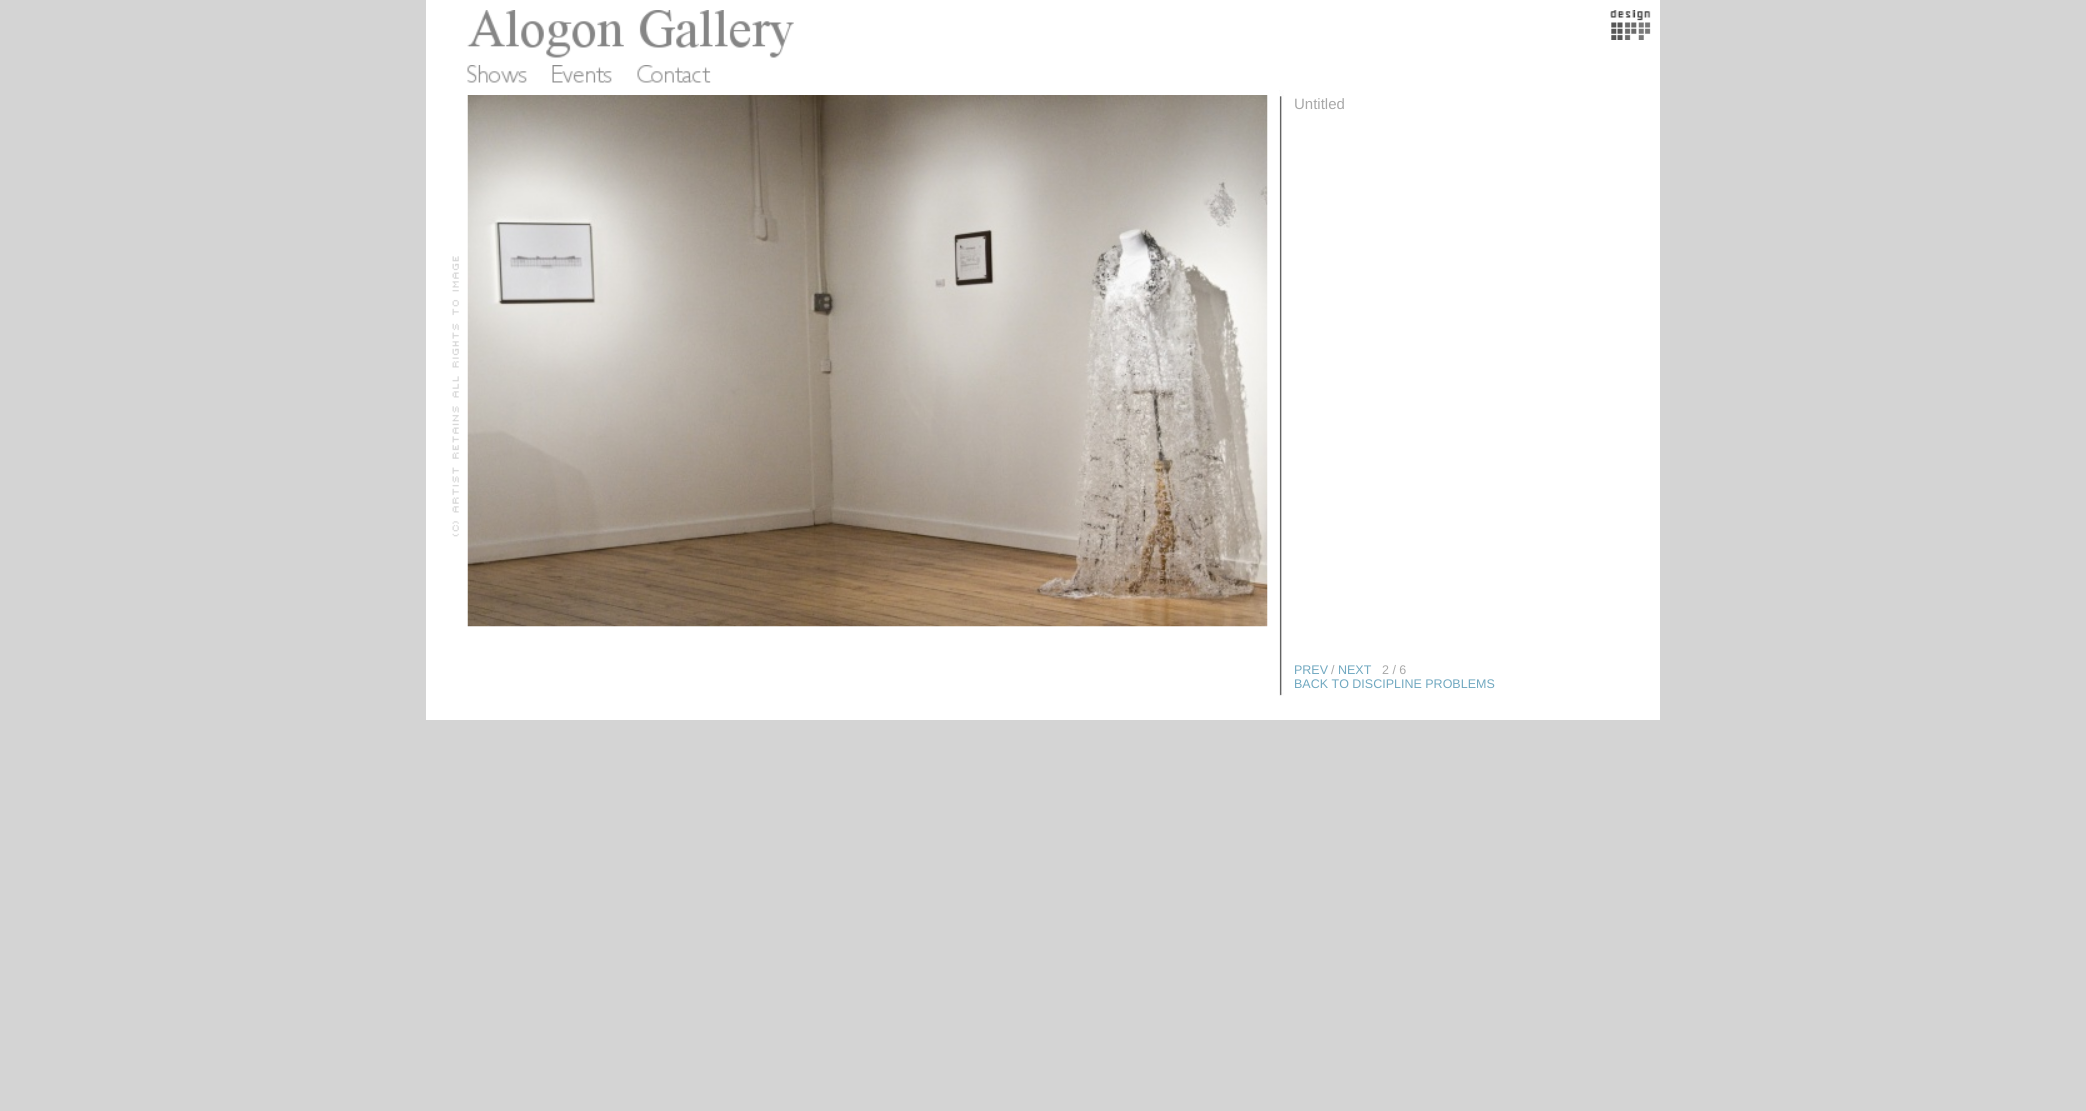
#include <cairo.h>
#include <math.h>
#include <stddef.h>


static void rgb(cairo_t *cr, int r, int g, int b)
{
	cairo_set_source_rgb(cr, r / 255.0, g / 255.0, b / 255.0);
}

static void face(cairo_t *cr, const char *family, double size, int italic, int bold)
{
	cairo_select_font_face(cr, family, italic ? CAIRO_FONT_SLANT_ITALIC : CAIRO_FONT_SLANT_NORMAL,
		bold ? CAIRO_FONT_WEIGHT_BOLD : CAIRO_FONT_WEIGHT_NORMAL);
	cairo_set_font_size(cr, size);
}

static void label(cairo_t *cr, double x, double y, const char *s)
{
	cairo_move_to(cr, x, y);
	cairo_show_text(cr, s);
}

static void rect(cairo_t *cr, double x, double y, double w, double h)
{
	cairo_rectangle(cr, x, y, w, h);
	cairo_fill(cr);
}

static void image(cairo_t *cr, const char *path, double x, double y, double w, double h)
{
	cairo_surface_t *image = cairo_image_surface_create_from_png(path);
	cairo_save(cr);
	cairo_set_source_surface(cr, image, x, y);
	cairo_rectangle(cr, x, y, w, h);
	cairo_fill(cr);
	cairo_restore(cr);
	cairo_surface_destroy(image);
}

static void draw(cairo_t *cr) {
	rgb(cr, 212, 212, 212);
	cairo_paint(cr);
	rgb(cr, 255, 255, 255);
	rect(cr, 426, 0, 1234, 720);
	image(cr, "image0.png", 1279, 90, 5, 606);
	image(cr, "image1.png", 467, 10, 327, 48);
	image(cr, "image2.png", 1610, 10, 41, 30);
	image(cr, "image3.png", 467, 65, 60, 18);
	image(cr, "image4.png", 552, 65, 60, 18);
	image(cr, "image5.png", 637, 65, 74, 18);
	image(cr, "image6.png", 467, 95, 801, 532);
	face(cr, "Liberation Sans", 15, 0, 0);
	rgb(cr, 168, 168, 168);
	label(cr, 1294, 109, "Untitled");
	image(cr, "image7.png", 452, 256, 7, 281);
	face(cr, "Liberation Sans", 12.5, 0, 0);
	rgb(cr, 112, 168, 192);
	label(cr, 1294, 674, "PREV");
	rgb(cr, 168, 168, 168);
	label(cr, 1331, 674, "/");
	rgb(cr, 112, 168, 192);
	label(cr, 1338, 674, "NEXT");
	rgb(cr, 168, 168, 168);
	label(cr, 1382, 674, "2 / 6");
	rgb(cr, 112, 168, 192);
	label(cr, 1294, 688, "BACK TO DISCIPLINE PROBLEMS");
}

int main(void) {
	cairo_surface_t *surface = cairo_image_surface_create(CAIRO_FORMAT_RGB24, 2086, 1111);
	cairo_t *cr = cairo_create(surface);
	cairo_font_options_t *options = cairo_font_options_create();
	cairo_font_options_set_hint_metrics(options, CAIRO_HINT_METRICS_OFF);
	cairo_font_options_set_hint_style(options, CAIRO_HINT_STYLE_NONE);
	cairo_set_font_options(cr, options);
	cairo_set_miter_limit(cr, 4);
	draw(cr);
	cairo_surface_write_to_png(surface, "render.png");
	cairo_font_options_destroy(options);
	cairo_destroy(cr);
	cairo_surface_destroy(surface);
	return 0;
}
